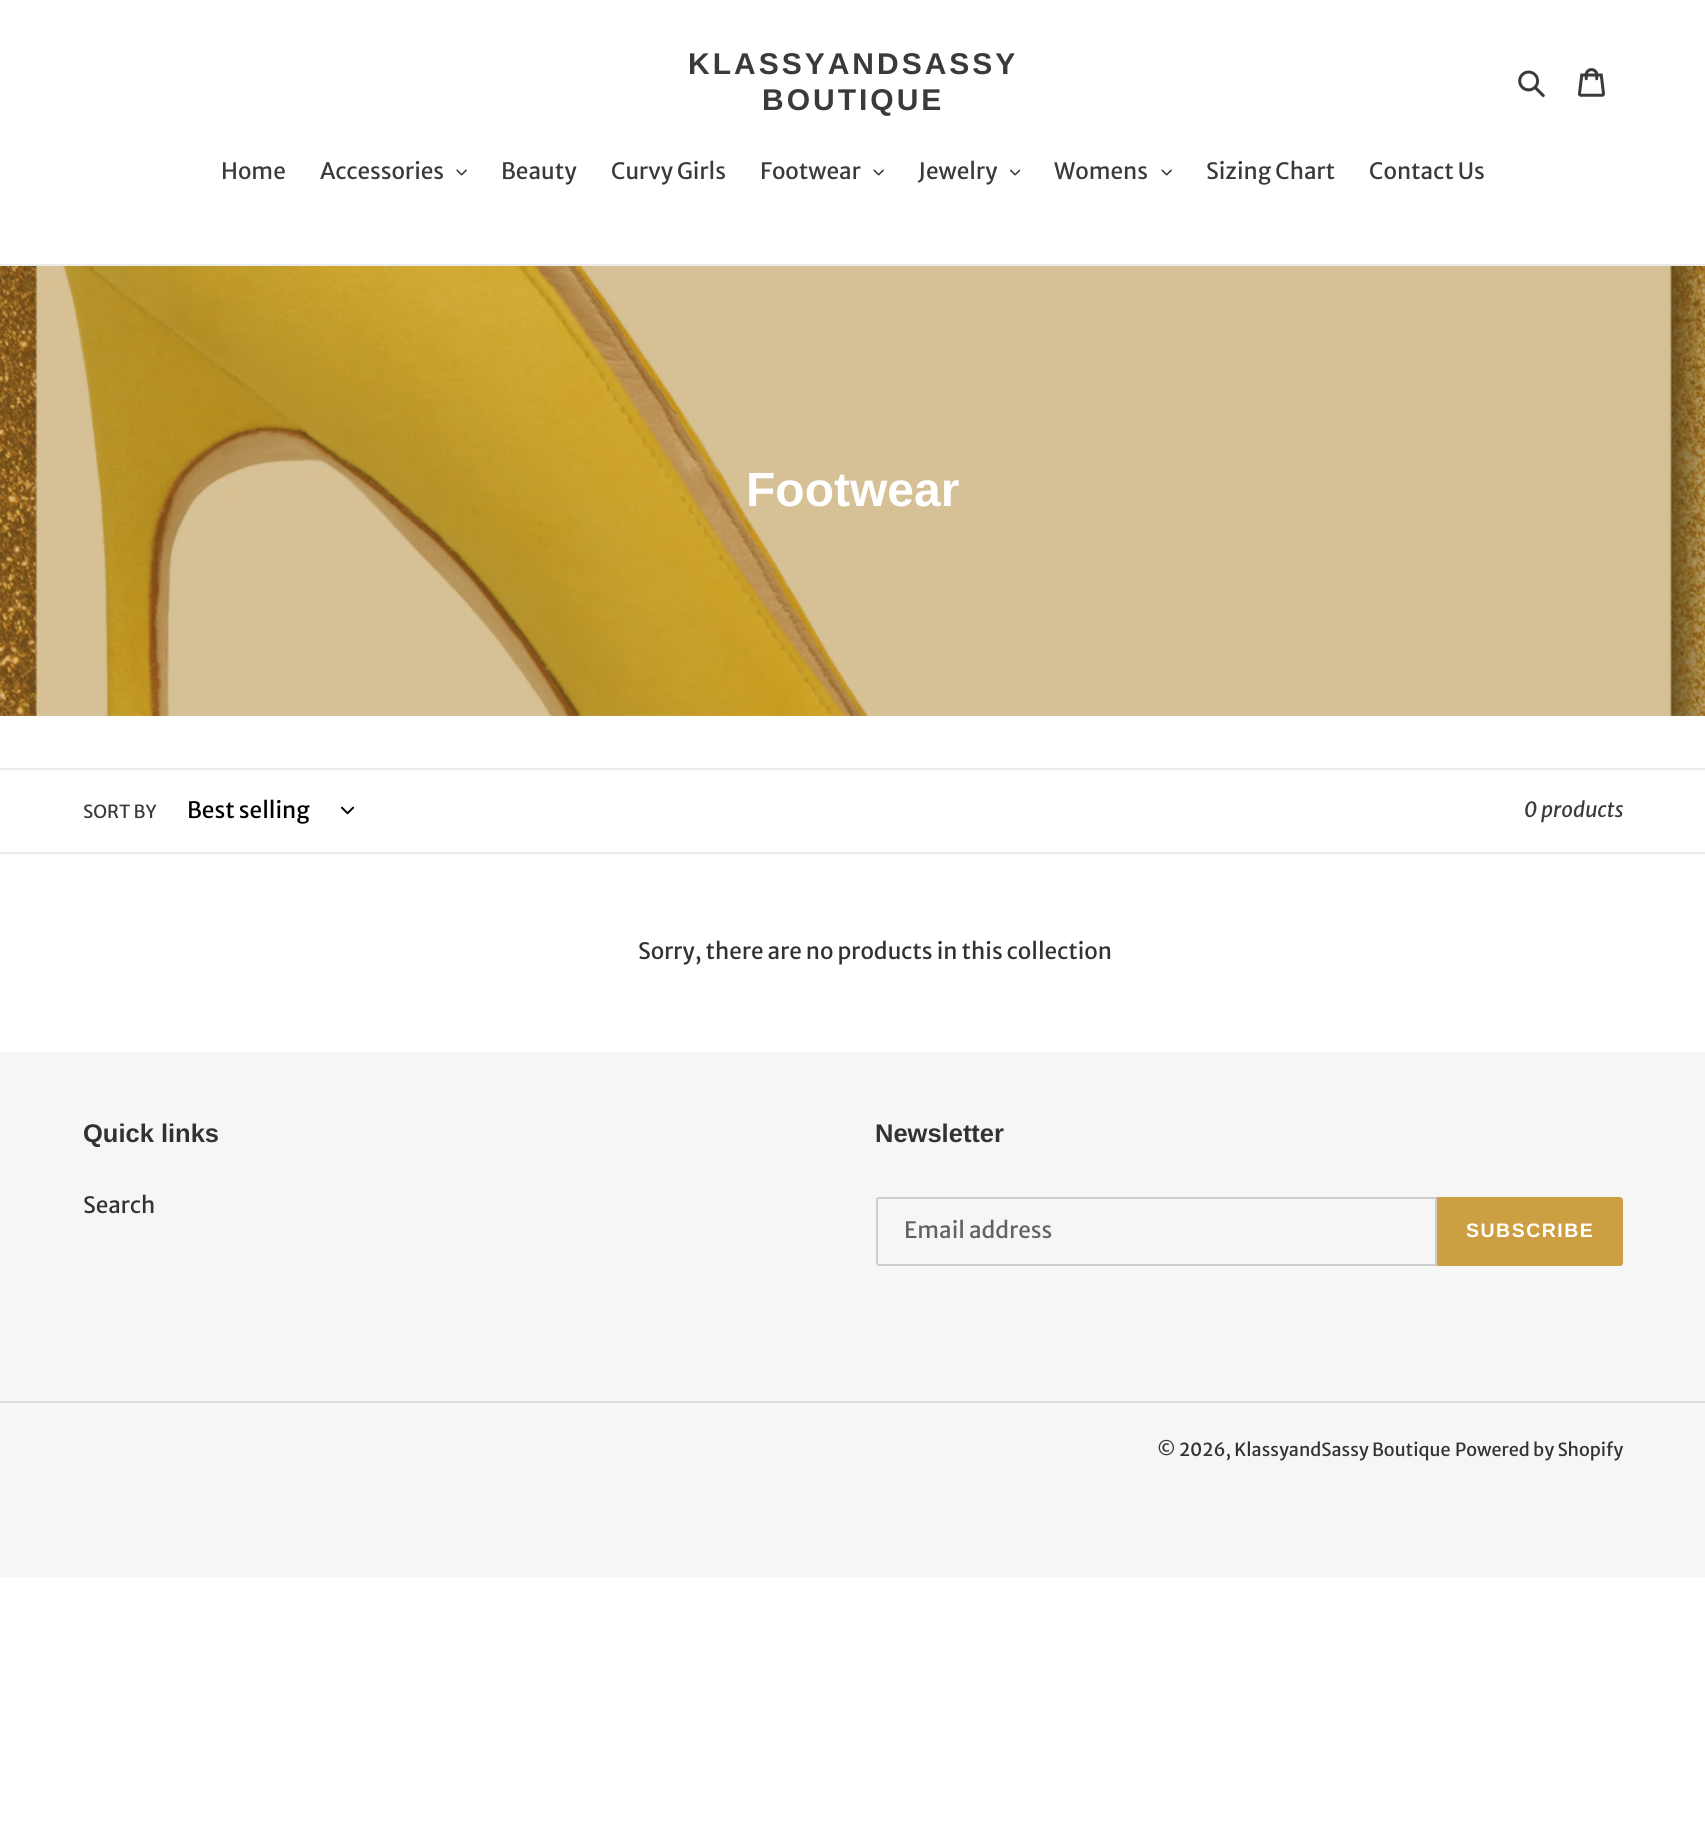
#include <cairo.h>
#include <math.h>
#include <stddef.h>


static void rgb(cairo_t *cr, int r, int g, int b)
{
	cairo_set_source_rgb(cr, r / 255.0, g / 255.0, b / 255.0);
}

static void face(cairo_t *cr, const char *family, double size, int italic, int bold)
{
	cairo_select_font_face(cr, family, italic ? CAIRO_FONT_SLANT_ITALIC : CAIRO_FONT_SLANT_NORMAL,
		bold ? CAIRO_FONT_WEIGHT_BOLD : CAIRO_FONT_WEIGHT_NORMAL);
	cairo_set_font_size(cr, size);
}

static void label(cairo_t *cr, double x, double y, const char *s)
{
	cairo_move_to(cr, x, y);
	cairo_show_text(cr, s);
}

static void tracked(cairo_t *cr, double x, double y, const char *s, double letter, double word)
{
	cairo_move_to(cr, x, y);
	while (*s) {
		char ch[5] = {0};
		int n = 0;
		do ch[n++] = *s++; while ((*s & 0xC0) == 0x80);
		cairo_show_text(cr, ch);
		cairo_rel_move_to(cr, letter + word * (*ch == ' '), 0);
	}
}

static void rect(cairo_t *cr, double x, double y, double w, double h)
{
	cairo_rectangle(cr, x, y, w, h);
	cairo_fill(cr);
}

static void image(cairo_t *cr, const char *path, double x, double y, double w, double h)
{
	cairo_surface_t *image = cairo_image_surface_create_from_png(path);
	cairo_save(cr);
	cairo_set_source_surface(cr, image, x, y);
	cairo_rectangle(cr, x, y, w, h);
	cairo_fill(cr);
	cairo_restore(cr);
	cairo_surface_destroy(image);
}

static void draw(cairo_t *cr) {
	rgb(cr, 255, 255, 255);
	cairo_paint(cr);
	face(cr, "Liberation Sans", 30, 0, 1);
	rgb(cr, 58, 58, 58);
	tracked(cr, 688, 74, "KLASSYANDSASSY", 3, 0);
	tracked(cr, 762, 110, "BOUTIQUE", 3, 0);
	image(cr, "image0.png", 1518, 70, 27, 28);
	image(cr, "image1.png", 1578, 68, 27, 29);
	rgb(cr, 235, 235, 235);
	rect(cr, 0, 264, 1705, 2);
	face(cr, "Merriweather Sans", 22.5, 0, 0);
	rgb(cr, 58, 58, 58);
	label(cr, 221, 179, "Home");
	label(cr, 320, 179, "Accessories");
	image(cr, "image2.png", 456, 169, 11, 7);
	label(cr, 501, 179, "Beauty");
	label(cr, 611, 179, "Curvy Girls");
	label(cr, 760, 179, "Footwear");
	image(cr, "image2.png", 873, 169, 11, 7);
	label(cr, 918, 179, "Jewelry");
	image(cr, "image3.png", 1010, 169, 10, 7);
	label(cr, 1054, 179, "Womens");
	image(cr, "image2.png", 1161, 169, 11, 7);
	label(cr, 1206, 179, "Sizing Chart");
	label(cr, 1369, 179, "Contact Us");
	image(cr, "image4.png", 0, 266, 1705, 450);
	face(cr, "Liberation Sans", 48, 0, 1);
	rgb(cr, 255, 255, 255);
	label(cr, 746, 506, "Footwear");
	rgb(cr, 235, 235, 235);
	rect(cr, 0, 768, 1705, 2);
	rect(cr, 0, 852, 1705, 2);
	face(cr, "Merriweather Sans", 18, 0, 0);
	rgb(cr, 58, 58, 58);
	label(cr, 83, 818, "SORT BY");
	face(cr, "Merriweather Sans", 22.5, 0, 0);
	rgb(cr, 0, 0, 0);
	label(cr, 187, 818, "Best selling");
	image(cr, "image5.png", 341, 806, 14, 9);
	face(cr, "Merriweather Sans", 21, 1, 0);
	rgb(cr, 58, 58, 58);
	label(cr, 1524, 817, "0 products");
	face(cr, "Merriweather Sans", 22.5, 0, 0);
	rgb(cr, 51, 50, 50);
	label(cr, 638, 959, "Sorry, there are no products in this collection");
	rgb(cr, 246, 246, 246);
	rect(cr, 0, 1052, 1705, 525);
	face(cr, "Liberation Sans", 25.5, 0, 1);
	rgb(cr, 51, 50, 50);
	label(cr, 83, 1142, "Quick links");
	face(cr, "Merriweather Sans", 22.5, 0, 0);
	label(cr, 83, 1213, "Search");
	face(cr, "Liberation Sans", 25.5, 0, 1);
	label(cr, 875, 1142, "Newsletter");
	cairo_new_path(cr);
	cairo_move_to(cr, 879, 1198);
	cairo_line_to(cr, 1436, 1198);
	cairo_line_to(cr, 1436, 1265);
	cairo_line_to(cr, 879, 1265);
	cairo_curve_to(cr, 878, 1265, 877, 1264, 877, 1263);
	cairo_line_to(cr, 877, 1200);
	cairo_curve_to(cr, 877, 1199, 878, 1198, 879, 1198);
	cairo_close_path(cr);
	rgb(cr, 204, 204, 204);
	cairo_stroke(cr);
	face(cr, "Merriweather Sans", 22.5, 0, 0);
	rgb(cr, 98, 98, 98);
	label(cr, 904, 1238, "Email address");
	rgb(cr, 205, 159, 67);
	cairo_new_path(cr);
	cairo_move_to(cr, 1437, 1197);
	cairo_line_to(cr, 1620, 1197);
	cairo_curve_to(cr, 1621.5, 1197, 1623, 1198.5, 1623, 1200);
	cairo_line_to(cr, 1623, 1263);
	cairo_curve_to(cr, 1623, 1264.5, 1621.5, 1266, 1620, 1266);
	cairo_line_to(cr, 1437, 1266);
	cairo_close_path(cr);
	cairo_fill(cr);
	face(cr, "Liberation Sans", 19.5, 0, 1);
	rgb(cr, 255, 255, 255);
	tracked(cr, 1466, 1237, "SUBSCRIBE", 1.5, 0);
	rgb(cr, 221, 221, 221);
	rect(cr, 0, 1401, 1705, 2);
	face(cr, "Merriweather Sans", 18, 0, 0);
	rgb(cr, 51, 50, 50);
	label(cr, 1157, 1456, "© 2026, KlassyandSassy Boutique");
	label(cr, 1455, 1456, "Powered by Shopify");
}

int main(void) {
	cairo_surface_t *surface = cairo_image_surface_create(CAIRO_FORMAT_RGB24, 1705, 1842);
	cairo_t *cr = cairo_create(surface);
	cairo_font_options_t *options = cairo_font_options_create();
	cairo_font_options_set_hint_metrics(options, CAIRO_HINT_METRICS_OFF);
	cairo_font_options_set_hint_style(options, CAIRO_HINT_STYLE_NONE);
	cairo_set_font_options(cr, options);
	cairo_set_miter_limit(cr, 4);
	draw(cr);
	cairo_surface_write_to_png(surface, "render.png");
	cairo_font_options_destroy(options);
	cairo_destroy(cr);
	cairo_surface_destroy(surface);
	return 0;
}
